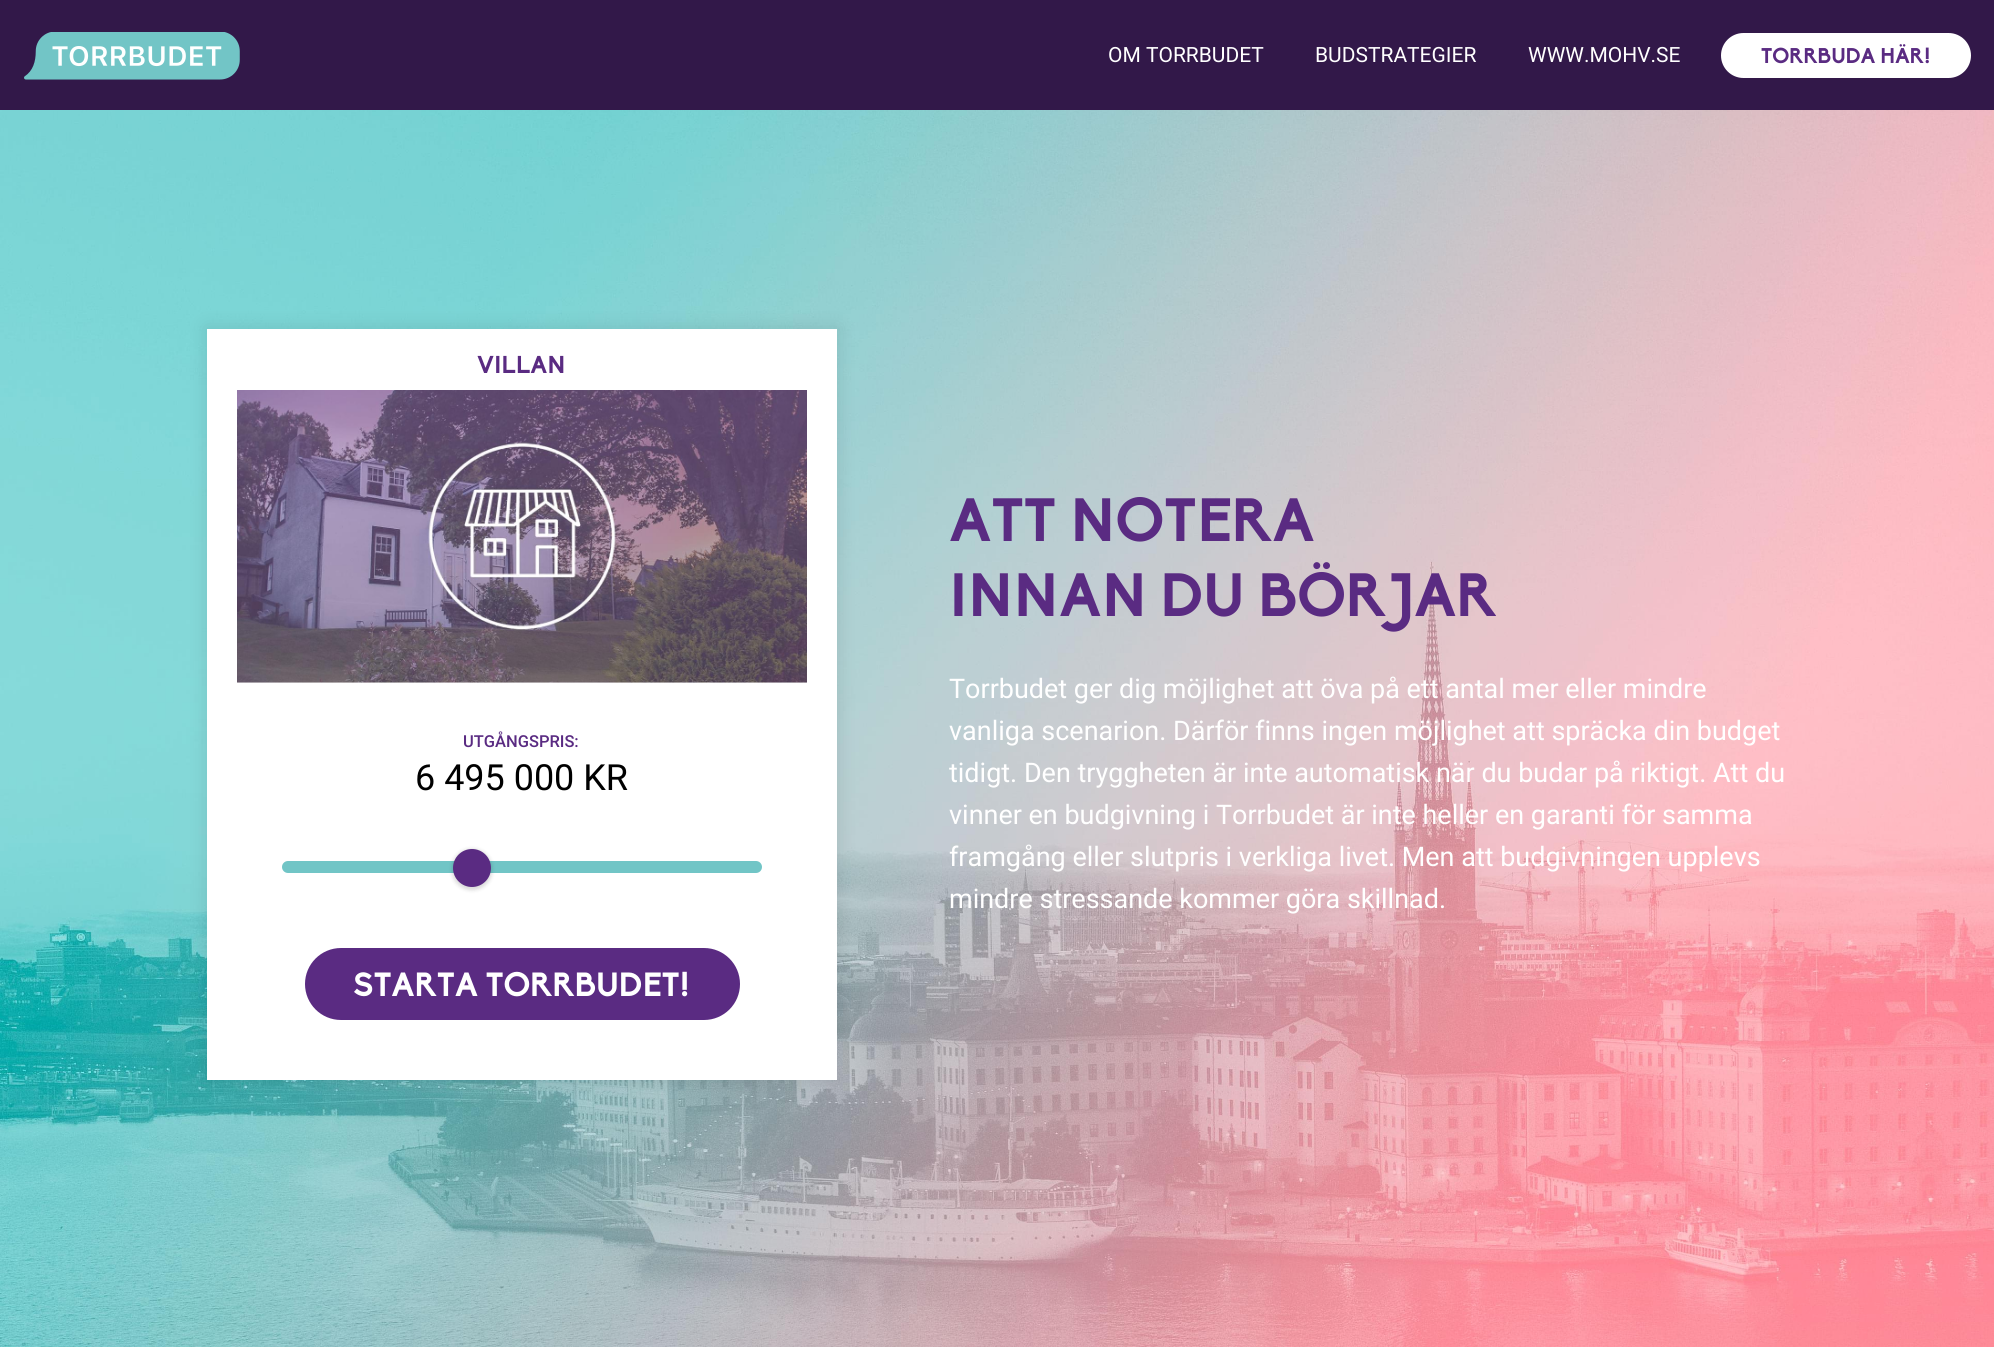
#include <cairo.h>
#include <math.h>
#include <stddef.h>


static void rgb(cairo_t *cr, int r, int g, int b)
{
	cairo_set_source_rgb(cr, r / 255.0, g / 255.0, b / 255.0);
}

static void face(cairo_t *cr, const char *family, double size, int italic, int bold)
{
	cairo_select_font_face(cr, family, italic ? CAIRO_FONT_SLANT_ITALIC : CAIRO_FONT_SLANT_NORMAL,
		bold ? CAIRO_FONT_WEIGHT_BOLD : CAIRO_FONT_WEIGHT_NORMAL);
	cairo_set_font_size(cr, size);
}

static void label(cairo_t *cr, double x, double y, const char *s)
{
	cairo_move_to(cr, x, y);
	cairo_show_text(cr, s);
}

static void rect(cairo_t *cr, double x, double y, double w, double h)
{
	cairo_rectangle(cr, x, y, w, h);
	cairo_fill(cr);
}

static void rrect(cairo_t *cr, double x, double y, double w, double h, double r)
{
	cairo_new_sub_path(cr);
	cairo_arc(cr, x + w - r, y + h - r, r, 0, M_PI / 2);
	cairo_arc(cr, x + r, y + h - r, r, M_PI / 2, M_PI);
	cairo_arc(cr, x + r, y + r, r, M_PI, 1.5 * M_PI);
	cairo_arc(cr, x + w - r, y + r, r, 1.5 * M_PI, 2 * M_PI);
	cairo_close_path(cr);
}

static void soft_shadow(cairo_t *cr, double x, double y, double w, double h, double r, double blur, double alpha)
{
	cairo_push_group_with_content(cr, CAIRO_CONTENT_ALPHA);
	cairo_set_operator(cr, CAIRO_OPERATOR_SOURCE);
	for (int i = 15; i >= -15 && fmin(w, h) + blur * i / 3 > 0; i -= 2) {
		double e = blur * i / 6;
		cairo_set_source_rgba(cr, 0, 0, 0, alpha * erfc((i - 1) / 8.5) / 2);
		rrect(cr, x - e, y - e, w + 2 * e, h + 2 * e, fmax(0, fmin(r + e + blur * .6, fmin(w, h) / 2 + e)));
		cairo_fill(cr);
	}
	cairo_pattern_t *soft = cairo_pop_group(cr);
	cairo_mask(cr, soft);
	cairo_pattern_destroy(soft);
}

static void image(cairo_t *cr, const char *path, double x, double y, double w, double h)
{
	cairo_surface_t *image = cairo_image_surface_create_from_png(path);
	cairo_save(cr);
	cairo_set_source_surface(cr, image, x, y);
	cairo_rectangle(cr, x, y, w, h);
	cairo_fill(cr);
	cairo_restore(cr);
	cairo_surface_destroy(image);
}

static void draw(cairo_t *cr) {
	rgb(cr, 255, 255, 255);
	cairo_paint(cr);
	rgb(cr, 50, 24, 73);
	rect(cr, 0, 0, 1994, 110);
	image(cr, "image0.png", 24, 32, 216, 48);
	face(cr, "Roboto", 21, 0, 0);
	rgb(cr, 255, 255, 255);
	label(cr, 1108, 62, "OM TORRBUDET");
	label(cr, 1315, 62, "BUDSTRATEGIER");
	label(cr, 1528, 62, "WWW.MOHV.SE");
	rrect(cr, 1721, 33, 250, 45, 22.5);
	cairo_fill(cr);
	face(cr, "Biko", 21, 0, 1);
	rgb(cr, 90, 43, 130);
	label(cr, 1761, 63, "TORRBUDA HÄR!");
	image(cr, "image1.png", 0, 110, 1994, 1237);
	rgb(cr, 0, 0, 0);
	soft_shadow(cr, 206, 327, 633, 755, 0, 9, 0.1);
	rgb(cr, 255, 255, 255);
	rect(cr, 207, 329, 630, 751);
	face(cr, "Biko", 24, 0, 1);
	rgb(cr, 90, 43, 130);
	label(cr, 477, 373, "VILLAN");
	rgb(cr, 238, 238, 238);
	rect(cr, 237, 682, 570, 1);
	image(cr, "image2.png", 237, 390, 570, 293);
	face(cr, "Roboto Medium", 16.5, 0, 0);
	rgb(cr, 90, 43, 130);
	label(cr, 463, 747, "UTGÅNGSPRIS:");
	face(cr, "Roboto", 36, 0, 0);
	rgb(cr, 0, 0, 0);
	label(cr, 415, 790, "6 495 000 KR");
	rgb(cr, 113, 197, 198);
	rrect(cr, 282, 861, 480, 12, 6);
	cairo_fill(cr);
	rgb(cr, 0, 0, 0);
	soft_shadow(cr, 452, 849, 40, 41, 20, 2, 0.15);
	rgb(cr, 90, 43, 130);
	cairo_arc(cr, 472, 868, 19, 0, 2 * M_PI);
	cairo_fill(cr);
	rrect(cr, 305, 948, 435, 72, 36);
	cairo_fill(cr);
	face(cr, "Biko", 33, 0, 1);
	rgb(cr, 255, 255, 255);
	label(cr, 353, 996, "STARTA TORRBUDET!");
	face(cr, "Biko", 60, 0, 1);
	rgb(cr, 90, 43, 130);
	label(cr, 949, 541, "ATT NOTERA");
	label(cr, 949, 616, "INNAN DU BÖRJAR");
	face(cr, "Roboto", 27, 0, 0);
	rgb(cr, 255, 255, 255);
	label(cr, 949, 698, "Torrbudet ger dig möjlighet att öva på ett antal mer eller mindre");
	label(cr, 949, 740, "vanliga scenarion. Därför finns ingen möjlighet att spräcka din budget");
	label(cr, 949, 782, "tidigt. Den tryggheten är inte automatisk när du budar på riktigt. Att du");
	label(cr, 949, 824, "vinner en budgivning i Torrbudet är inte heller en garanti för samma");
	label(cr, 949, 866, "framgång eller slutpris i verkliga livet. Men att budgivningen upplevs");
	label(cr, 949, 908, "mindre stressande kommer göra skillnad.");
}

int main(void) {
	cairo_surface_t *surface = cairo_image_surface_create(CAIRO_FORMAT_RGB24, 1994, 1347);
	cairo_t *cr = cairo_create(surface);
	cairo_font_options_t *options = cairo_font_options_create();
	cairo_font_options_set_hint_metrics(options, CAIRO_HINT_METRICS_OFF);
	cairo_font_options_set_hint_style(options, CAIRO_HINT_STYLE_NONE);
	cairo_set_font_options(cr, options);
	cairo_set_miter_limit(cr, 4);
	draw(cr);
	cairo_surface_write_to_png(surface, "render.png");
	cairo_font_options_destroy(options);
	cairo_destroy(cr);
	cairo_surface_destroy(surface);
	return 0;
}
